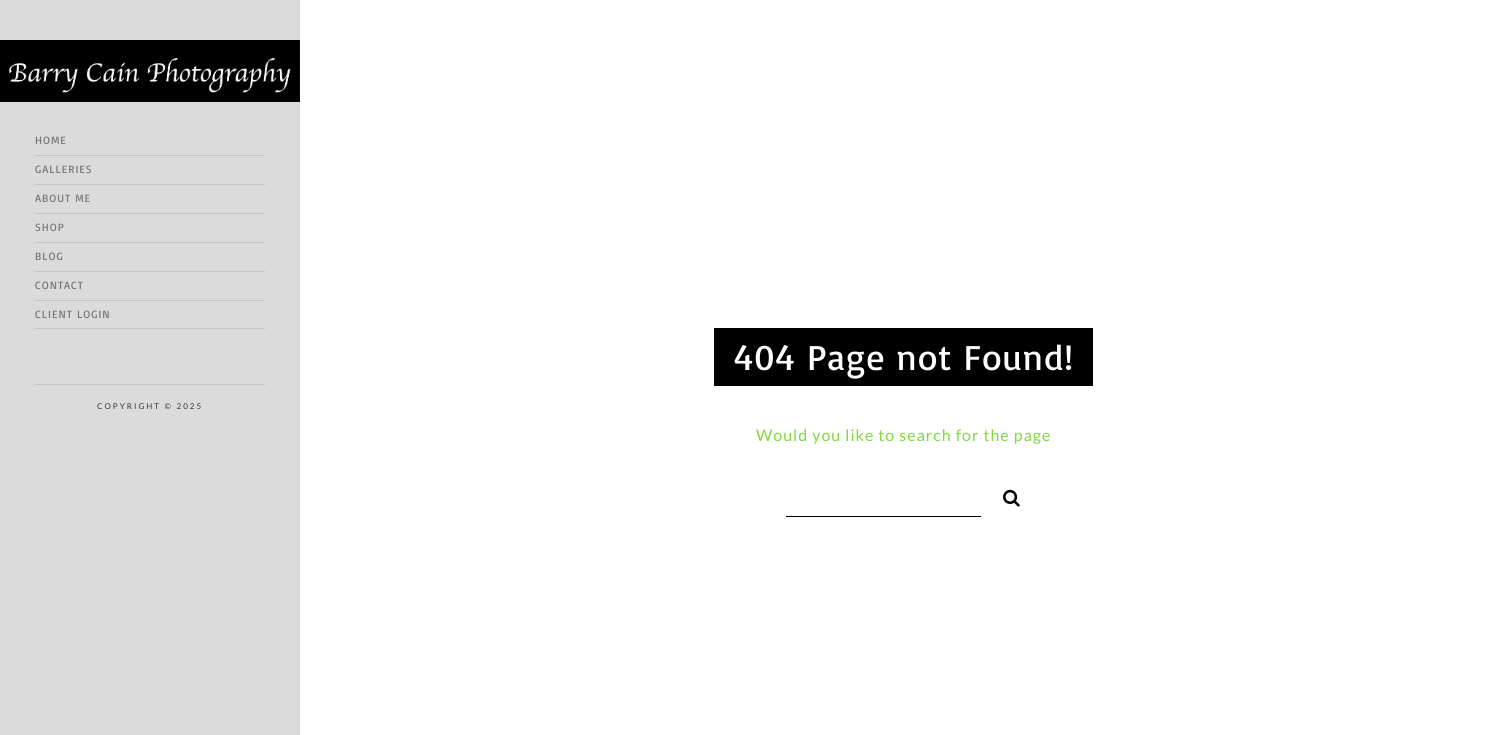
#include <cairo.h>
#include <math.h>
#include <stddef.h>


static void rgb(cairo_t *cr, int r, int g, int b)
{
	cairo_set_source_rgb(cr, r / 255.0, g / 255.0, b / 255.0);
}

static void face(cairo_t *cr, const char *family, double size, int italic, int bold)
{
	cairo_select_font_face(cr, family, italic ? CAIRO_FONT_SLANT_ITALIC : CAIRO_FONT_SLANT_NORMAL,
		bold ? CAIRO_FONT_WEIGHT_BOLD : CAIRO_FONT_WEIGHT_NORMAL);
	cairo_set_font_size(cr, size);
}

static void tracked(cairo_t *cr, double x, double y, const char *s, double letter, double word)
{
	cairo_move_to(cr, x, y);
	while (*s) {
		char ch[5] = {0};
		int n = 0;
		do ch[n++] = *s++; while ((*s & 0xC0) == 0x80);
		cairo_show_text(cr, ch);
		cairo_rel_move_to(cr, letter + word * (*ch == ' '), 0);
	}
}

static void rect(cairo_t *cr, double x, double y, double w, double h)
{
	cairo_rectangle(cr, x, y, w, h);
	cairo_fill(cr);
}

static void image(cairo_t *cr, const char *path, double x, double y, double w, double h)
{
	cairo_surface_t *image = cairo_image_surface_create_from_png(path);
	cairo_save(cr);
	cairo_set_source_surface(cr, image, x, y);
	cairo_rectangle(cr, x, y, w, h);
	cairo_fill(cr);
	cairo_restore(cr);
	cairo_surface_destroy(image);
}

static void draw(cairo_t *cr) {
	rgb(cr, 255, 255, 255);
	cairo_paint(cr);
	rgb(cr, 219, 219, 219);
	rect(cr, 0, 0, 300, 735);
	image(cr, "image0.png", 0, 40, 300, 62);
	rgb(cr, 197, 197, 197);
	rect(cr, 35, 155, 230, 1);
	face(cr, "Basic", 11, 0, 0);
	rgb(cr, 119, 119, 119);
	tracked(cr, 35, 144, "HOME", 1, 0);
	rgb(cr, 197, 197, 197);
	rect(cr, 35, 184, 230, 1);
	rgb(cr, 119, 119, 119);
	tracked(cr, 35, 173, "GALLERIES", 1, 0);
	rgb(cr, 197, 197, 197);
	rect(cr, 35, 213, 230, 1);
	rgb(cr, 119, 119, 119);
	tracked(cr, 35, 202, "ABOUT ME", 1, 0);
	rgb(cr, 197, 197, 197);
	rect(cr, 35, 242, 230, 1);
	rgb(cr, 119, 119, 119);
	tracked(cr, 35, 231, "SHOP", 1, 0);
	rgb(cr, 197, 197, 197);
	rect(cr, 35, 271, 230, 1);
	rgb(cr, 119, 119, 119);
	tracked(cr, 35, 260, "BLOG", 1, 0);
	rgb(cr, 197, 197, 197);
	rect(cr, 35, 300, 230, 1);
	rgb(cr, 119, 119, 119);
	tracked(cr, 35, 289, "CONTACT", 1, 0);
	rgb(cr, 197, 197, 197);
	rect(cr, 35, 328, 230, 1);
	rgb(cr, 119, 119, 119);
	tracked(cr, 35, 318, "CLIENT LOGIN", 1, 0);
	rgb(cr, 197, 197, 197);
	rect(cr, 35, 384, 230, 1);
	face(cr, "Lato", 8, 0, 0);
	rgb(cr, 54, 54, 54);
	tracked(cr, 97, 409, "COPYRIGHT © 2025", 2, 0);
	rgb(cr, 0, 0, 0);
	rect(cr, 714, 328, 379, 58);
	face(cr, "Basic", 36, 0, 0);
	rgb(cr, 255, 255, 255);
	tracked(cr, 734, 370, "404 Page not Found!", 1, 0);
	face(cr, "Lato", 16, 0, 0);
	rgb(cr, 129, 215, 66);
	tracked(cr, 756, 441, "Would you like to search for the page", 1, 0);
	image(cr, "image1.png", 1003, 489, 17, 18);
	rgb(cr, 0, 0, 0);
	rect(cr, 786, 516, 195, 1);
}

int main(void) {
	cairo_surface_t *surface = cairo_image_surface_create(CAIRO_FORMAT_RGB24, 1507, 735);
	cairo_t *cr = cairo_create(surface);
	cairo_font_options_t *options = cairo_font_options_create();
	cairo_font_options_set_hint_metrics(options, CAIRO_HINT_METRICS_OFF);
	cairo_font_options_set_hint_style(options, CAIRO_HINT_STYLE_NONE);
	cairo_set_font_options(cr, options);
	cairo_set_miter_limit(cr, 4);
	draw(cr);
	cairo_surface_write_to_png(surface, "render.png");
	cairo_font_options_destroy(options);
	cairo_destroy(cr);
	cairo_surface_destroy(surface);
	return 0;
}
